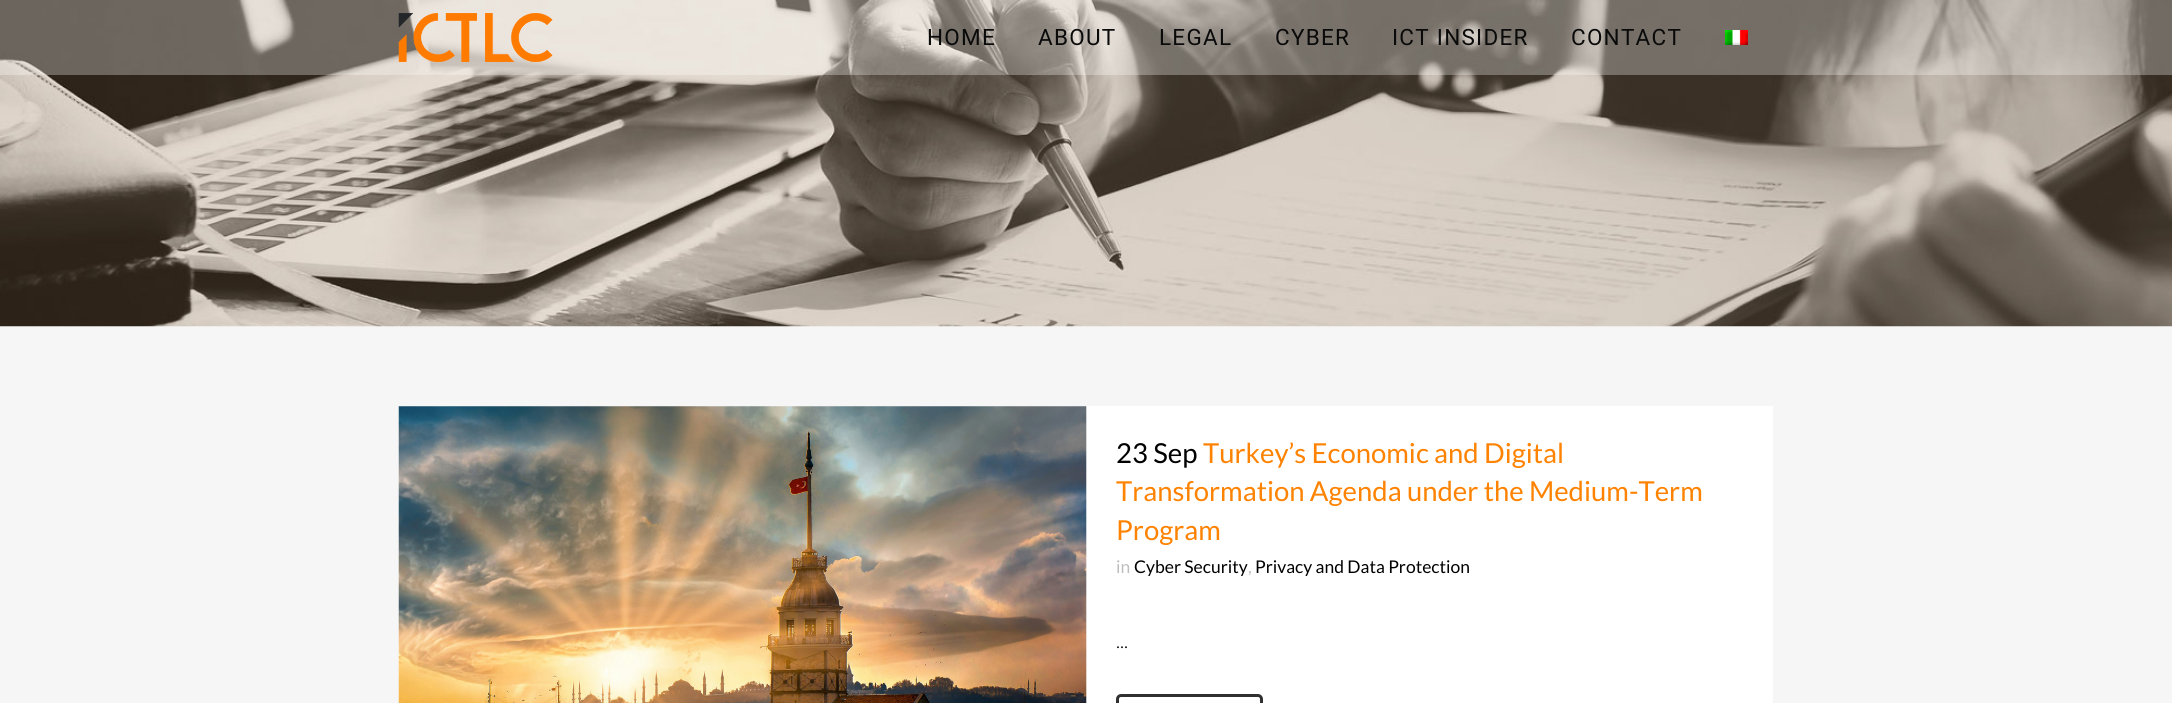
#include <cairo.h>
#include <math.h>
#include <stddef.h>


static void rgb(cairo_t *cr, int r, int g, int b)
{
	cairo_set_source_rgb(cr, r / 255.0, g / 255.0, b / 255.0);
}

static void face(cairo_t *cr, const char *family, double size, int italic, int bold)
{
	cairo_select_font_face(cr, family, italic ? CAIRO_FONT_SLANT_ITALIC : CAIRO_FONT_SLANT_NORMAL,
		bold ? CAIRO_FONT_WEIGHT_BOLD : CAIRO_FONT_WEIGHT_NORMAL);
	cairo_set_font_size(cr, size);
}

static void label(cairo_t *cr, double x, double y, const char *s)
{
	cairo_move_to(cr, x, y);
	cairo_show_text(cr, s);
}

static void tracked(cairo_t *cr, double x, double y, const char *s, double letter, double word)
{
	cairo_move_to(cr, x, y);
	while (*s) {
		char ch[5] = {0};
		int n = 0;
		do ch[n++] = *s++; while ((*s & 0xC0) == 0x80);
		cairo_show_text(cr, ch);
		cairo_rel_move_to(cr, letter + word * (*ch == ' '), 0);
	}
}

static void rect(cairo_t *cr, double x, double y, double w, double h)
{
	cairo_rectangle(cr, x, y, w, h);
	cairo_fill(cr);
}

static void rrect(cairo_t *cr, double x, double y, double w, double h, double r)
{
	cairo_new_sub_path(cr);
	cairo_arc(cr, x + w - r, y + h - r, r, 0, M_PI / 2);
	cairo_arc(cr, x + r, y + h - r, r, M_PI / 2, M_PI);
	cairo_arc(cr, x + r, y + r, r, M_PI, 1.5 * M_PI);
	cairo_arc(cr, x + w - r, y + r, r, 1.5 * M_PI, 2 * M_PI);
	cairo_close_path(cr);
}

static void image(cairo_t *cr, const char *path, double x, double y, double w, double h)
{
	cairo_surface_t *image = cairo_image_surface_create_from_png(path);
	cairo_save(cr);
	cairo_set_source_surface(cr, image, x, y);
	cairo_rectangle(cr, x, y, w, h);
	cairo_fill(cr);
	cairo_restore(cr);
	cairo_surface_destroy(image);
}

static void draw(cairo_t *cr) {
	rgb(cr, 246, 246, 246);
	cairo_paint(cr);
	image(cr, "image2.png", 0, 0, 2172, 327);
	cairo_set_source_rgba(cr, 1, 1, 1, 0.3);
	rect(cr, 0, 0, 2172, 75);
	image(cr, "image0.png", 398, 13, 155, 49);
	face(cr, "Roboto", 22.5, 0, 0);
	rgb(cr, 10, 10, 10);
	tracked(cr, 927, 45, "HOME", 1.25, 0);
	tracked(cr, 1038, 45, "ABOUT", 1.25, 0);
	tracked(cr, 1159, 45, "LEGAL", 1.25, 0);
	tracked(cr, 1275, 45, "CYBER", 1.25, 0);
	tracked(cr, 1392, 45, "ICT INSIDER", 1.25, 0);
	tracked(cr, 1571, 45, "CONTACT", 1.25, 0);
	image(cr, "image1.png", 1725, 30, 23, 15);
	image(cr, "image3.png", 398, 406, 689, 297);
	rgb(cr, 255, 255, 255);
	rect(cr, 1087, 406, 686, 297);
	face(cr, "Lato", 27.5, 0, 0);
	rgb(cr, 0, 0, 0);
	label(cr, 1116, 463, "23 Sep");
	rgb(cr, 255, 130, 0);
	label(cr, 1203, 463, "Turkey’s Economic and Digital");
	label(cr, 1116, 501, "Transformation Agenda under the Medium-Term");
	label(cr, 1116, 540, "Program");
	face(cr, "Lato", 17.5, 0, 0);
	rgb(cr, 190, 190, 190);
	label(cr, 1116, 573, "in");
	rgb(cr, 0, 0, 0);
	label(cr, 1134, 573, "Cyber Security");
	rgb(cr, 190, 190, 190);
	label(cr, 1248, 573, ",");
	rgb(cr, 0, 0, 0);
	label(cr, 1255, 573, "Privacy and Data Protection");
	face(cr, "Lato Light", 20, 0, 0);
	label(cr, 1116, 648, "...");
	rrect(cr, 1117.5, 695.5, 144, 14, 3.5);
	rgb(cr, 48, 48, 48);
	cairo_set_line_width(cr, 3);
	cairo_stroke(cr);
}

int main(void) {
	cairo_surface_t *surface = cairo_image_surface_create(CAIRO_FORMAT_RGB24, 2172, 703);
	cairo_t *cr = cairo_create(surface);
	cairo_font_options_t *options = cairo_font_options_create();
	cairo_font_options_set_hint_metrics(options, CAIRO_HINT_METRICS_OFF);
	cairo_font_options_set_hint_style(options, CAIRO_HINT_STYLE_NONE);
	cairo_set_font_options(cr, options);
	cairo_set_miter_limit(cr, 4);
	draw(cr);
	cairo_surface_write_to_png(surface, "render.png");
	cairo_font_options_destroy(options);
	cairo_destroy(cr);
	cairo_surface_destroy(surface);
	return 0;
}
